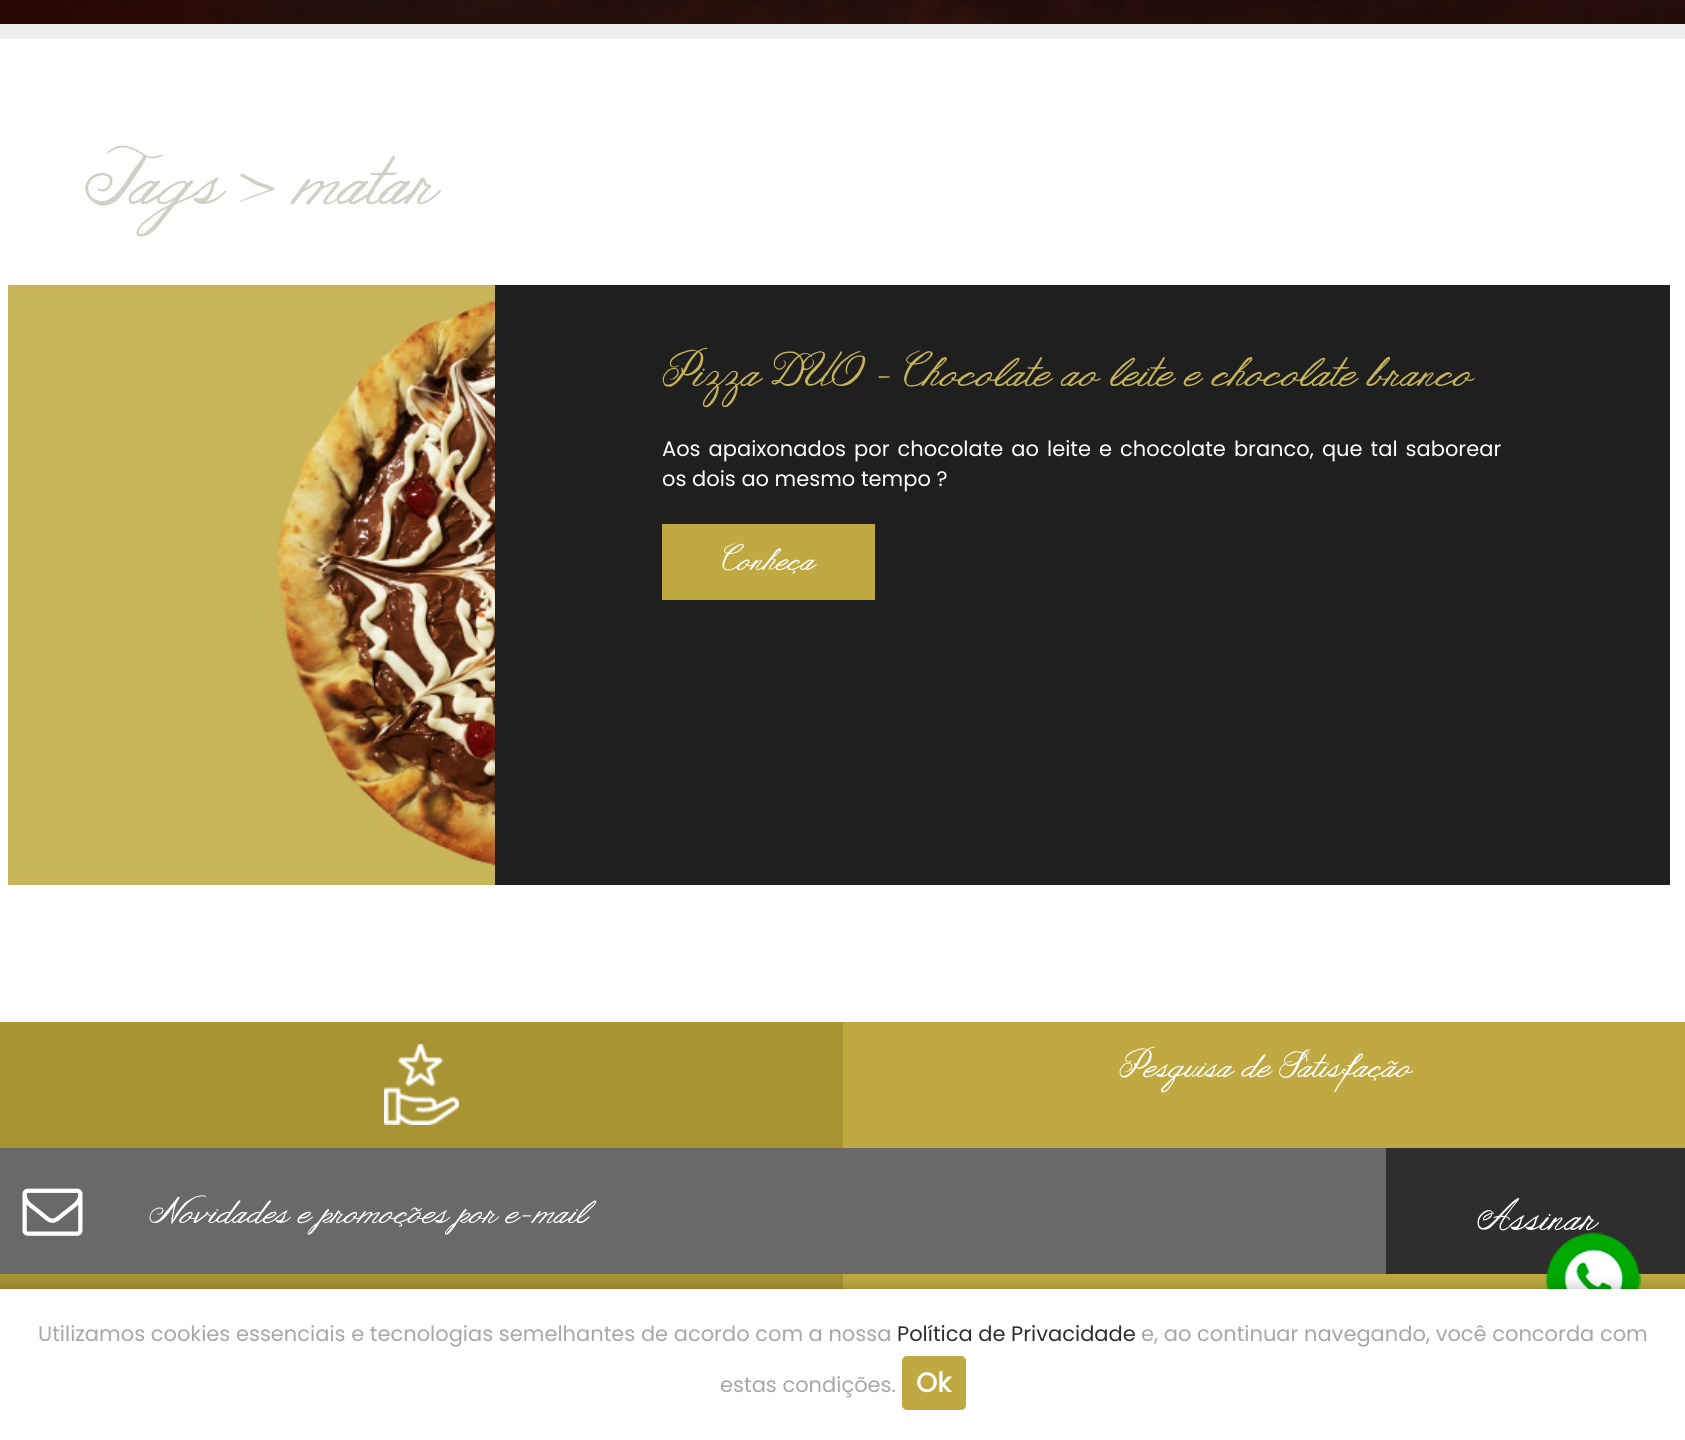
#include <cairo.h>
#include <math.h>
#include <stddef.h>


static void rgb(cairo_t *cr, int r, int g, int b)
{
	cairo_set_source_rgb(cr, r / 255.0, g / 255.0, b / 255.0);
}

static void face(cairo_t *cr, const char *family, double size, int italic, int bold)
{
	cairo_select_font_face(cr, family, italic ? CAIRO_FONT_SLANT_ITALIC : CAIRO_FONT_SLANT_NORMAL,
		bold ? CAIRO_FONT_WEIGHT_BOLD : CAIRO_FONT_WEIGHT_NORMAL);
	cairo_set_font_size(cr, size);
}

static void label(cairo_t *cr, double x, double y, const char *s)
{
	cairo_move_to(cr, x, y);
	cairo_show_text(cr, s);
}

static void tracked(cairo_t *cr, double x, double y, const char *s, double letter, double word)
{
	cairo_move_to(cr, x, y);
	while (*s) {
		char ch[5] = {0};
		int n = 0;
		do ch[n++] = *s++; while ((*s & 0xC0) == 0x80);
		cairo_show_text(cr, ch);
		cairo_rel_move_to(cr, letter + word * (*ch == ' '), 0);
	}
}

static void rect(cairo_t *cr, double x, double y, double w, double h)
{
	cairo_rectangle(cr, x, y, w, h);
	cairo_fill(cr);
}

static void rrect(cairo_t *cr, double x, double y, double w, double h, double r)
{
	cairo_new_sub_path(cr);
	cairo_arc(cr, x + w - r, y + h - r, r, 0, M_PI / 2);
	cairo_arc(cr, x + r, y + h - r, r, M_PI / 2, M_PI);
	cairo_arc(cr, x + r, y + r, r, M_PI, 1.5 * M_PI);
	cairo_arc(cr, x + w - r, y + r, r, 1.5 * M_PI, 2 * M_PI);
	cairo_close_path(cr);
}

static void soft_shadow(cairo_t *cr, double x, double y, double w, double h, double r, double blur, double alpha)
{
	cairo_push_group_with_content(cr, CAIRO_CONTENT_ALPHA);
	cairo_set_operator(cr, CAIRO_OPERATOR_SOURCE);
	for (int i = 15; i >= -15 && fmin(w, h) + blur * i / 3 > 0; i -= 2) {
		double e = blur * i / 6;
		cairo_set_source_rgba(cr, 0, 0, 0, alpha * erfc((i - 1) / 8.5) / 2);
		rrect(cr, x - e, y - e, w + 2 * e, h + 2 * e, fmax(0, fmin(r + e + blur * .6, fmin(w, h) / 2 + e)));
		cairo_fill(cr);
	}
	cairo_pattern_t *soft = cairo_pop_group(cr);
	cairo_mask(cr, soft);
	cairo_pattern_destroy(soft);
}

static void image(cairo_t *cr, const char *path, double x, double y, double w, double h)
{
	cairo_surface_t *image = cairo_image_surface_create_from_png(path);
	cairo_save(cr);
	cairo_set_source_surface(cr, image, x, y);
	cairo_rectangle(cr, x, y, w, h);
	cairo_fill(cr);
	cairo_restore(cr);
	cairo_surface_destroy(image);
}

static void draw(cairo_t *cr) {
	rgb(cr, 255, 255, 255);
	cairo_paint(cr);
	image(cr, "image0.png", 0, 0, 1685, 24);
	cairo_set_source_rgba(cr, 0, 0, 0, 0.07);
	cairo_new_path(cr);
	cairo_move_to(cr, 0, 24);
	cairo_line_to(cr, 0, 39);
	cairo_line_to(cr, 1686, 39);
	cairo_line_to(cr, 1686, 9);
	cairo_line_to(cr, 1671, 9);
	cairo_line_to(cr, 1671, 24);
	cairo_close_path(cr);
	cairo_fill(cr);
	face(cr, "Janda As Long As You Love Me", 60, 0, 0);
	rgb(cr, 210, 208, 198);
	tracked(cr, 84, 204, "Tags > matar", -1.5, 0);
	rgb(cr, 200, 181, 89);
	rect(cr, 8, 285, 487, 600);
	image(cr, "image1.png", 277, 301, 218, 565);
	rgb(cr, 31, 31, 31);
	rect(cr, 495, 285, 1175, 600);
	face(cr, "Janda As Long As You Love Me", 36, 0, 0);
	rgb(cr, 199, 180, 88);
	label(cr, 662, 386, "Pizza DUO - Chocolate ao leite e chocolate branco");
	face(cr, "Poppins", 21, 0, 0);
	rgb(cr, 255, 255, 255);
	tracked(cr, 662, 456, "Aos apaixonados por chocolate ao leite e chocolate branco, que tal saborear", 0, 2.4);
	label(cr, 662, 486, "os dois ao mesmo tempo ?");
	rgb(cr, 192, 169, 65);
	rect(cr, 662, 524, 213, 76);
	face(cr, "Janda As Long As You Love Me", 27, 0, 0);
	rgb(cr, 255, 255, 255);
	label(cr, 722, 570, "Conheça");
	rgb(cr, 169, 148, 51);
	rect(cr, 0, 1022, 843, 126);
	image(cr, "image2.png", 384, 1044, 75, 81);
	rgb(cr, 192, 169, 65);
	rect(cr, 843, 1022, 842, 126);
	face(cr, "Janda As Long As You Love Me", 28.5, 0, 0);
	rgb(cr, 255, 255, 255);
	label(cr, 1119, 1077, "Pesquisa de Satisfação");
	rgb(cr, 105, 105, 105);
	rect(cr, 0, 1148, 1386, 126);
	image(cr, "image3.png", 22, 1188, 61, 48);
	rgb(cr, 255, 255, 255);
	label(cr, 149, 1223, "Novidades e promoções por e-mail");
	rgb(cr, 46, 46, 46);
	rect(cr, 1386, 1148, 299, 126);
	face(cr, "Janda As Long As You Love Me", 33, 0, 0);
	rgb(cr, 255, 255, 255);
	label(cr, 1477, 1230, "Assinar");
	rgb(cr, 169, 148, 51);
	rect(cr, 0, 1274, 843, 15);
	rgb(cr, 192, 169, 65);
	rect(cr, 843, 1274, 842, 15);
	image(cr, "image4.png", 1546, 1232, 95, 57);
	rgb(cr, 0, 0, 0);
	soft_shadow(cr, 0, 1289, 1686, 151, 0, 7.5, 0.28);
	rgb(cr, 255, 255, 255);
	rect(cr, 0, 1289, 1685, 151);
	face(cr, "Poppins", 21, 0, 0);
	rgb(cr, 167, 167, 167);
	label(cr, 38, 1341, "Utilizamos cookies essenciais e tecnologias semelhantes de acordo com a nossa");
	rgb(cr, 46, 46, 46);
	label(cr, 897, 1341, "Política de Privacidade");
	rgb(cr, 167, 167, 167);
	label(cr, 1141, 1341, "e, ao continuar navegando, você concorda com");
	label(cr, 720, 1392, "estas condições.");
	rgb(cr, 192, 169, 65);
	rrect(cr, 902, 1356, 64, 54, 5);
	cairo_fill(cr);
	face(cr, "Poppins", 27, 0, 1);
	rgb(cr, 255, 255, 255);
	label(cr, 916, 1392, "Ok");
}

int main(void) {
	cairo_surface_t *surface = cairo_image_surface_create(CAIRO_FORMAT_RGB24, 1685, 1440);
	cairo_t *cr = cairo_create(surface);
	cairo_font_options_t *options = cairo_font_options_create();
	cairo_font_options_set_hint_metrics(options, CAIRO_HINT_METRICS_OFF);
	cairo_font_options_set_hint_style(options, CAIRO_HINT_STYLE_NONE);
	cairo_set_font_options(cr, options);
	cairo_set_miter_limit(cr, 4);
	draw(cr);
	cairo_surface_write_to_png(surface, "render.png");
	cairo_font_options_destroy(options);
	cairo_destroy(cr);
	cairo_surface_destroy(surface);
	return 0;
}
